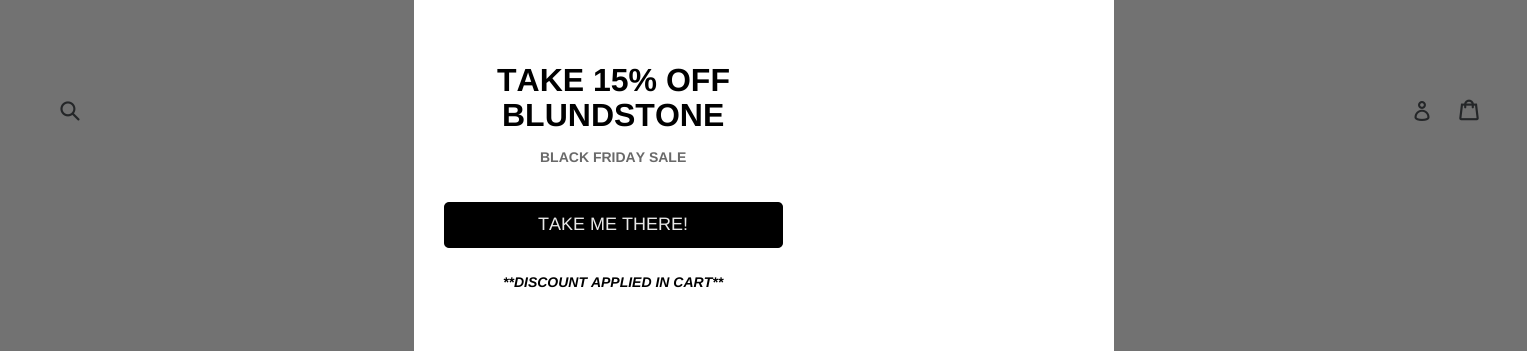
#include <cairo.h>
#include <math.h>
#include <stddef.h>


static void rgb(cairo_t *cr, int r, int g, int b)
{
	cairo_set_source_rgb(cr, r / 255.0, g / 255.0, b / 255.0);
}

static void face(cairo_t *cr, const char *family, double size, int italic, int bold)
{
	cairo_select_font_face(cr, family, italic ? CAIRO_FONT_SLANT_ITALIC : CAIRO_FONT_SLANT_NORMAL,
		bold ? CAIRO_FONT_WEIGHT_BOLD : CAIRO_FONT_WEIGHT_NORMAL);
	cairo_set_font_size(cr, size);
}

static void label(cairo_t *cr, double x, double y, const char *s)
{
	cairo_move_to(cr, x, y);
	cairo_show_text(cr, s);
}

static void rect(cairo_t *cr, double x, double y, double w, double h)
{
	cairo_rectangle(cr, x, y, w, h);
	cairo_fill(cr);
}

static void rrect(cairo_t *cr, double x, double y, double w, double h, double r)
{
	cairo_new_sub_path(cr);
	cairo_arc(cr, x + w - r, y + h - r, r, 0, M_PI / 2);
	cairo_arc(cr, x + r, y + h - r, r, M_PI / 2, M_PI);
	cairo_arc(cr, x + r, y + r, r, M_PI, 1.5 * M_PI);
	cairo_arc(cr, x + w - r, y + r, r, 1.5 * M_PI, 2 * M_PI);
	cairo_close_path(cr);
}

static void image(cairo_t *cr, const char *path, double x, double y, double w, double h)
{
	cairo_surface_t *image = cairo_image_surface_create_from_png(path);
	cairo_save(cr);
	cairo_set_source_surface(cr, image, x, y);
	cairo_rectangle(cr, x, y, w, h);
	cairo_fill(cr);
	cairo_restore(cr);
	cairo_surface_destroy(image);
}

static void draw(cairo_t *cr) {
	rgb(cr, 114, 114, 114);
	cairo_paint(cr);
	rgb(cr, 255, 255, 255);
	rect(cr, 414, 0, 700, 351);
	face(cr, "Liberation Sans", 32, 0, 1);
	rgb(cr, 0, 0, 0);
	label(cr, 497, 91, "TAKE 15% OFF");
	label(cr, 502, 126, "BLUNDSTONE");
	face(cr, "Liberation Sans", 14, 0, 1);
	rgb(cr, 105, 105, 105);
	label(cr, 540, 162, "BLACK FRIDAY SALE");
	rgb(cr, 0, 0, 0);
	rrect(cr, 445, 203, 337, 44, 4);
	cairo_fill_preserve(cr);
	cairo_stroke(cr);
	face(cr, "Liberation Sans", 18, 0, 0);
	rgb(cr, 232, 232, 232);
	label(cr, 538, 230, "TAKE ME THERE!");
	face(cr, "Liberation Sans", 14, 1, 1);
	rgb(cr, 0, 0, 0);
	label(cr, 503, 287, "**DISCOUNT APPLIED IN CART**");
	image(cr, "image0.png", 60, 101, 20, 20);
	image(cr, "image1.png", 1414, 101, 16, 20);
	image(cr, "image2.png", 1459, 99, 20, 22);
}

int main(void) {
	cairo_surface_t *surface = cairo_image_surface_create(CAIRO_FORMAT_RGB24, 1527, 351);
	cairo_t *cr = cairo_create(surface);
	cairo_font_options_t *options = cairo_font_options_create();
	cairo_font_options_set_hint_metrics(options, CAIRO_HINT_METRICS_OFF);
	cairo_font_options_set_hint_style(options, CAIRO_HINT_STYLE_NONE);
	cairo_set_font_options(cr, options);
	cairo_set_miter_limit(cr, 4);
	draw(cr);
	cairo_surface_write_to_png(surface, "render.png");
	cairo_font_options_destroy(options);
	cairo_destroy(cr);
	cairo_surface_destroy(surface);
	return 0;
}
